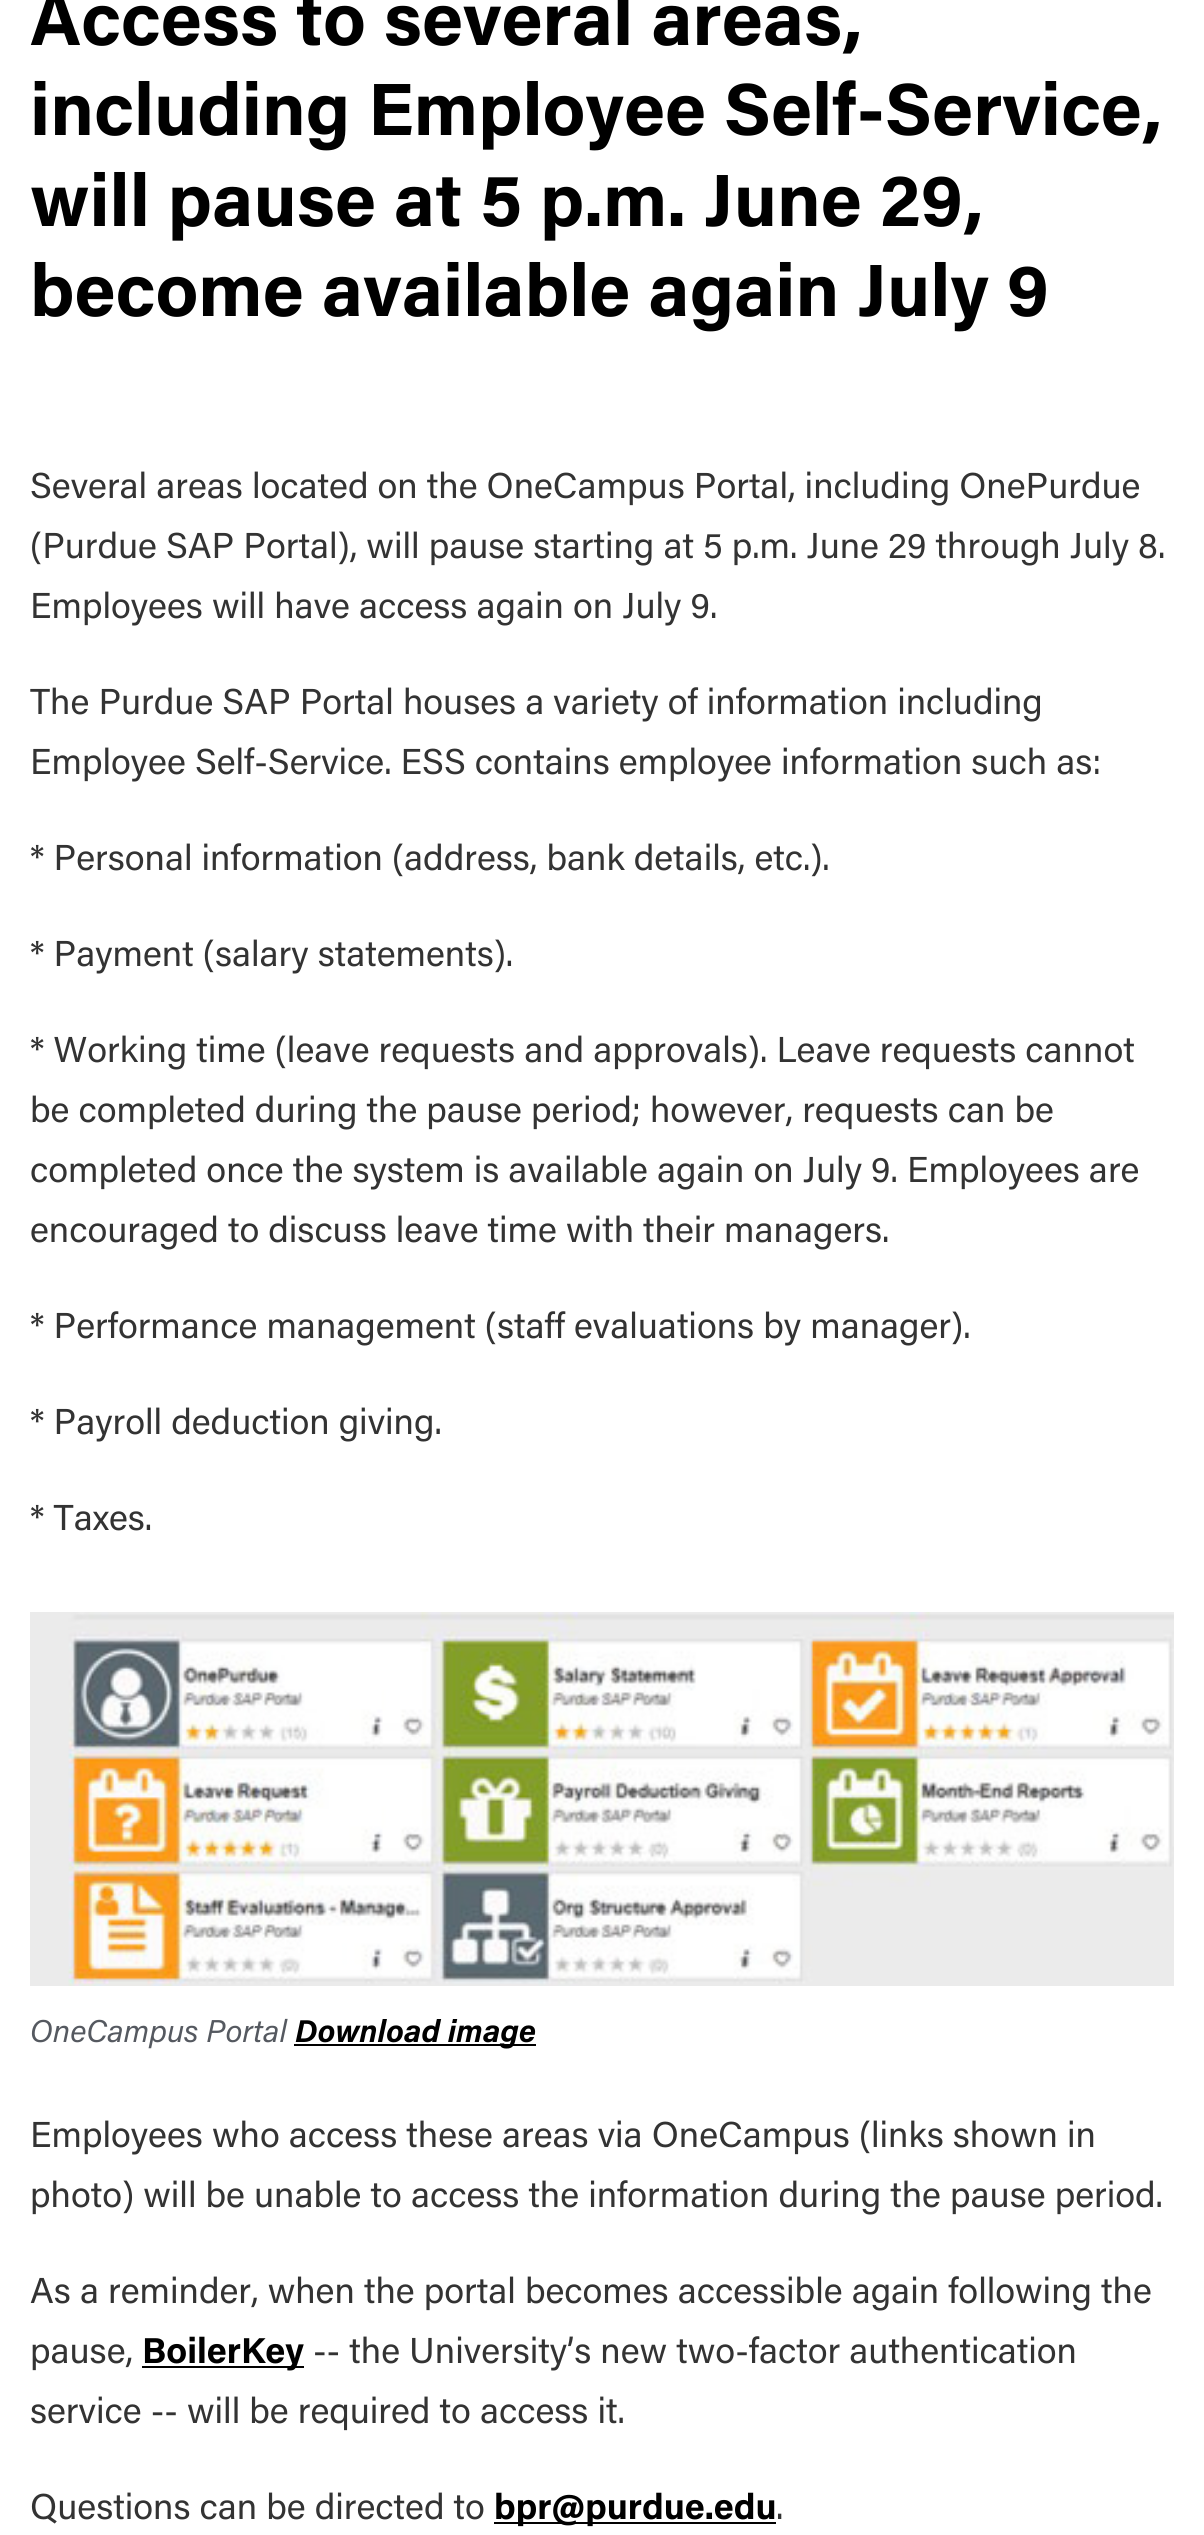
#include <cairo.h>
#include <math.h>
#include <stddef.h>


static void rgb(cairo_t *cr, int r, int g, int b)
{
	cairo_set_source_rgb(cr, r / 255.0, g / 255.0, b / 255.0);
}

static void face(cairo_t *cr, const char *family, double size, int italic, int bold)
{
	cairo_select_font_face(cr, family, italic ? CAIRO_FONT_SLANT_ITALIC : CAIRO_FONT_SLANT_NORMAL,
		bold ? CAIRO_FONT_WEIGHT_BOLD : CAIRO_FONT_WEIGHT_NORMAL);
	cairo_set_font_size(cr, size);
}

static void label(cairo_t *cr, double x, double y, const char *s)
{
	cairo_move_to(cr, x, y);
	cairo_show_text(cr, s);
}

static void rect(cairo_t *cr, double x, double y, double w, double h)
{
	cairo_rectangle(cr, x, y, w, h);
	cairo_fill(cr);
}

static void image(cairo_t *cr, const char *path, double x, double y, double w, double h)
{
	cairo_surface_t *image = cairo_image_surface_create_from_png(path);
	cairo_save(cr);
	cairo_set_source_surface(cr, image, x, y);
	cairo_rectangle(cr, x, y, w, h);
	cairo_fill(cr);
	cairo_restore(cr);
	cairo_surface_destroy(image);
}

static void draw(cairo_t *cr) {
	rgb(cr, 255, 255, 255);
	cairo_paint(cr);
	face(cr, "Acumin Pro", 74, 0, 1);
	rgb(cr, 0, 0, 0);
	label(cr, 30, 45, "Access to several areas,");
	label(cr, 30, 135, "including Employee Self-Service,");
	label(cr, 30, 226, "will pause at 5 p.m. June 29,");
	label(cr, 30, 316, "become available again July 9");
	face(cr, "Acumin Pro", 36, 0, 0);
	rgb(cr, 51, 51, 51);
	label(cr, 30, 498, "Several areas located on the OneCampus Portal, including OnePurdue");
	label(cr, 30, 558, "(Purdue SAP Portal), will pause starting at 5 p.m. June 29 through July 8.");
	label(cr, 30, 618, "Employees will have access again on July 9.");
	label(cr, 30, 714, "The Purdue SAP Portal houses a variety of information including");
	label(cr, 30, 774, "Employee Self-Service. ESS contains employee information such as:");
	label(cr, 30, 870, "* Personal information (address, bank details, etc.).");
	label(cr, 30, 966, "* Payment (salary statements).");
	label(cr, 30, 1062, "* Working time (leave requests and approvals). Leave requests cannot");
	label(cr, 30, 1122, "be completed during the pause period; however, requests can be");
	label(cr, 30, 1182, "completed once the system is available again on July 9. Employees are");
	label(cr, 30, 1242, "encouraged to discuss leave time with their managers.");
	label(cr, 30, 1338, "* Performance management (staff evaluations by manager).");
	label(cr, 30, 1434, "* Payroll deduction giving.");
	label(cr, 30, 1530, "* Taxes.");
	image(cr, "image0.png", 30, 1612, 1144, 374);
	face(cr, "Acumin Pro", 31.5, 1, 0);
	rgb(cr, 85, 89, 96);
	label(cr, 30, 2042, "OneCampus Portal");
	rgb(cr, 0, 0, 0);
	rect(cr, 294, 2044, 242, 2);
	face(cr, "Acumin Pro", 31.5, 1, 1);
	label(cr, 295, 2042, "Download image");
	face(cr, "Acumin Pro", 36, 0, 0);
	rgb(cr, 51, 51, 51);
	label(cr, 30, 2147, "Employees who access these areas via OneCampus (links shown in");
	label(cr, 30, 2207, "photo) will be unable to access the information during the pause period.");
	label(cr, 30, 2303, "As a reminder, when the portal becomes accessible again following the");
	label(cr, 30, 2363, "pause,");
	rgb(cr, 0, 0, 0);
	rect(cr, 142, 2366, 162, 2);
	face(cr, "Acumin Pro", 36, 0, 1);
	label(cr, 142, 2363, "BoilerKey");
	face(cr, "Acumin Pro", 36, 0, 0);
	rgb(cr, 51, 51, 51);
	label(cr, 313, 2363, "-- the University’s new two-factor authentication");
	label(cr, 30, 2423, "service -- will be required to access it.");
	label(cr, 30, 2519, "Questions can be directed to");
	rgb(cr, 0, 0, 0);
	rect(cr, 494, 2522, 282, 2);
	face(cr, "Acumin Pro", 36, 0, 1);
	label(cr, 494, 2519, "bpr@purdue.edu");
	face(cr, "Acumin Pro", 36, 0, 0);
	rgb(cr, 51, 51, 51);
	label(cr, 776, 2519, ".");
}

int main(void) {
	cairo_surface_t *surface = cairo_image_surface_create(CAIRO_FORMAT_RGB24, 1204, 2535);
	cairo_t *cr = cairo_create(surface);
	cairo_font_options_t *options = cairo_font_options_create();
	cairo_font_options_set_hint_metrics(options, CAIRO_HINT_METRICS_OFF);
	cairo_font_options_set_hint_style(options, CAIRO_HINT_STYLE_NONE);
	cairo_set_font_options(cr, options);
	cairo_set_miter_limit(cr, 4);
	draw(cr);
	cairo_surface_write_to_png(surface, "render.png");
	cairo_font_options_destroy(options);
	cairo_destroy(cr);
	cairo_surface_destroy(surface);
	return 0;
}
